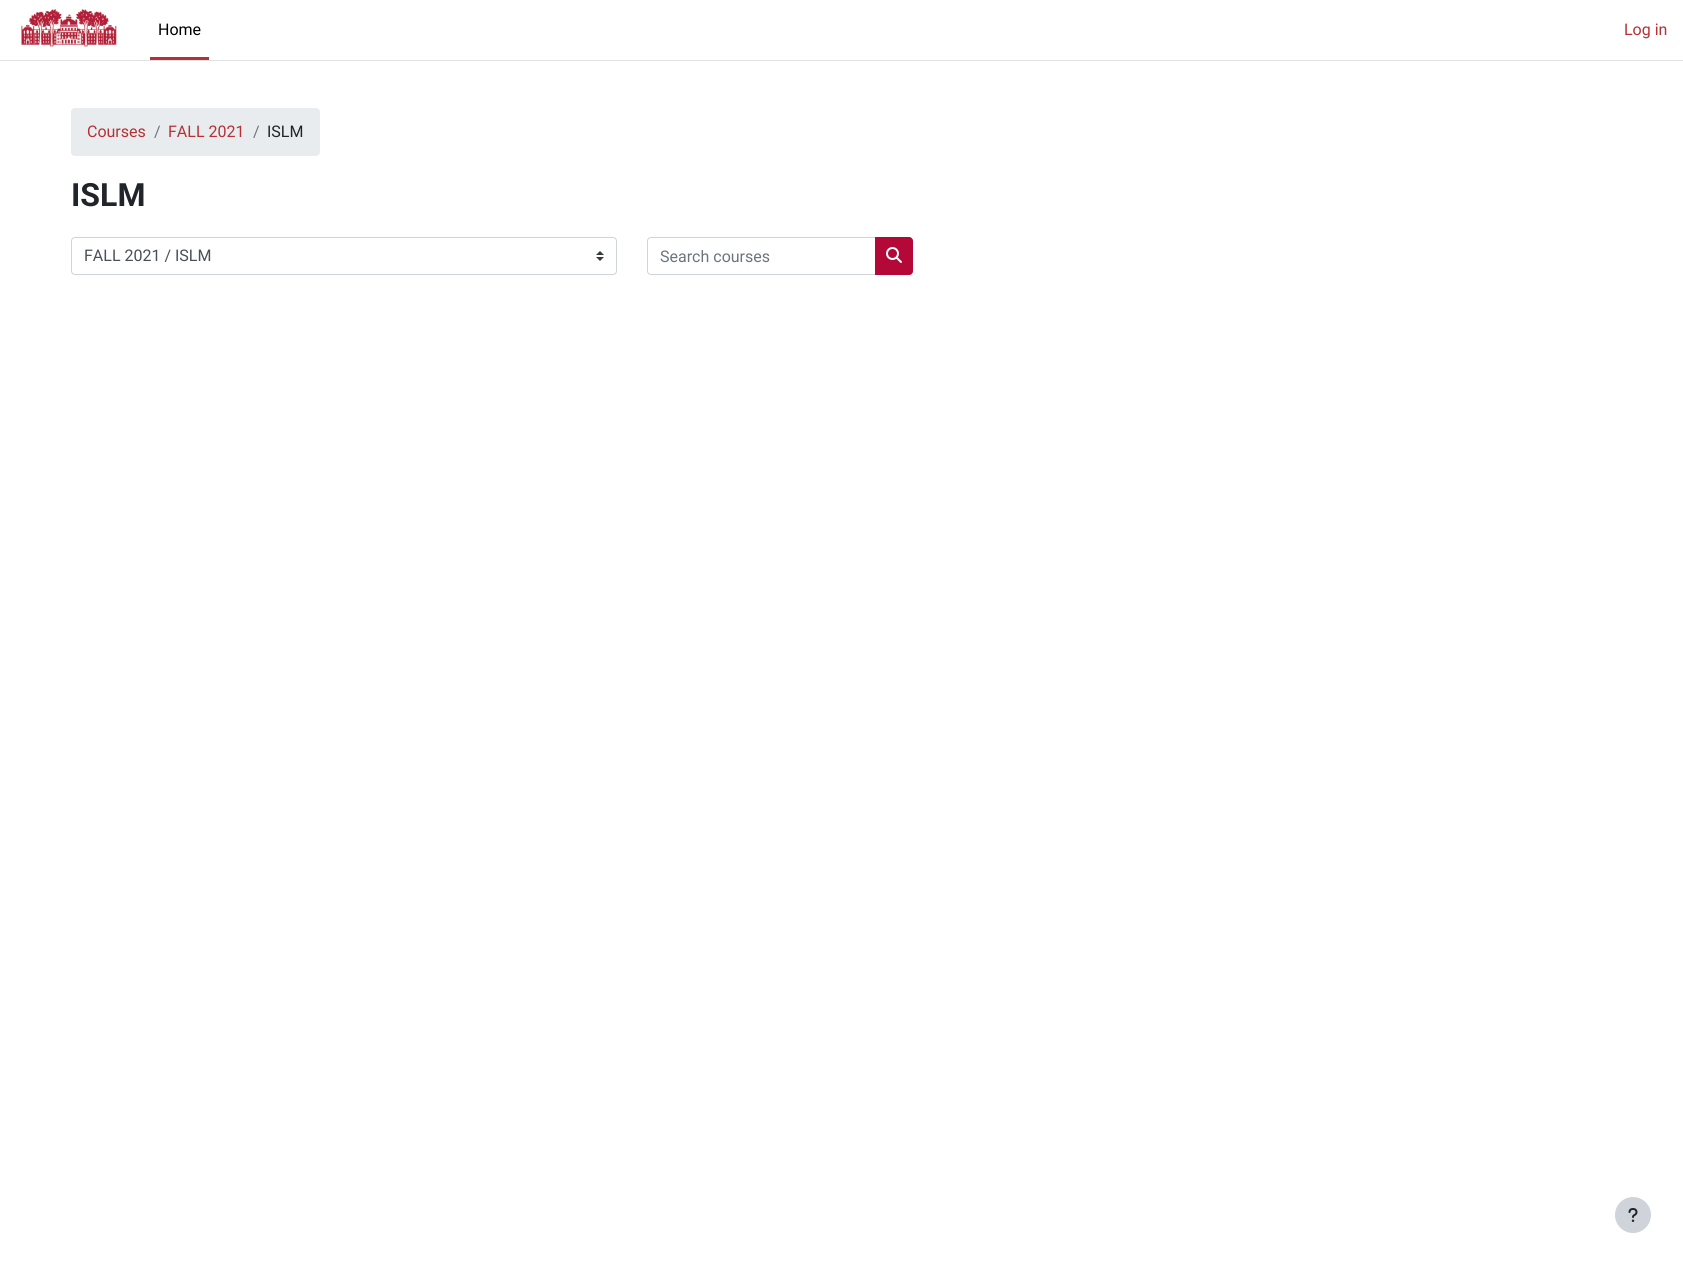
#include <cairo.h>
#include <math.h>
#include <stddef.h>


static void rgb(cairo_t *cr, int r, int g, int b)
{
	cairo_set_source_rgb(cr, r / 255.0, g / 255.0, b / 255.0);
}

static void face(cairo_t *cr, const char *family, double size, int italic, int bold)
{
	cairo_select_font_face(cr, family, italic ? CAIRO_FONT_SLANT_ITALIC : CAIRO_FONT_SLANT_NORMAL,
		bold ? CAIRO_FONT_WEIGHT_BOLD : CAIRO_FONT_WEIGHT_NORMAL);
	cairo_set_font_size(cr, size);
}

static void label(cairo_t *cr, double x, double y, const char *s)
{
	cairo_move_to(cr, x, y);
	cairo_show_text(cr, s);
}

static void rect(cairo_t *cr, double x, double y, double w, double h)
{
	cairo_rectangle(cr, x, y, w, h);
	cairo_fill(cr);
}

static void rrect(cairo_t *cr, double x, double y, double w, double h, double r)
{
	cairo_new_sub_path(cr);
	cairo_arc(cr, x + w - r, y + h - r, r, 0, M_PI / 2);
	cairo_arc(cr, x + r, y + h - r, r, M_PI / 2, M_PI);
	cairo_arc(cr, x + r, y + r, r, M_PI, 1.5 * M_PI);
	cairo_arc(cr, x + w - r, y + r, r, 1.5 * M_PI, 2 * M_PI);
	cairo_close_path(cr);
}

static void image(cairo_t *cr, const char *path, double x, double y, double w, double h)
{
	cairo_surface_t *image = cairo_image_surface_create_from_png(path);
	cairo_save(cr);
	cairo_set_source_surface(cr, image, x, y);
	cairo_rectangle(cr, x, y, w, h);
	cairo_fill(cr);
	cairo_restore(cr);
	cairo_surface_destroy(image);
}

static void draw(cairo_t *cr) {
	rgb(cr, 255, 255, 255);
	cairo_paint(cr);
	rgb(cr, 222, 226, 230);
	rect(cr, 0, 60, 1683, 1);
	image(cr, "image0.png", 21, 9, 96, 38);
	rgb(cr, 180, 49, 53);
	rect(cr, 150, 57, 59, 3);
	face(cr, "Roboto", 16, 0, 0);
	rgb(cr, 0, 0, 0);
	label(cr, 158, 35, "Home");
	rgb(cr, 180, 49, 53);
	label(cr, 1624, 35, "Log in");
	rgb(cr, 233, 236, 239);
	rrect(cr, 71, 108, 249, 48, 4);
	cairo_fill(cr);
	rgb(cr, 180, 49, 53);
	label(cr, 87, 137, "Courses");
	rgb(cr, 108, 117, 125);
	label(cr, 154, 137, "/");
	rgb(cr, 180, 49, 53);
	label(cr, 168, 137, "FALL 2021");
	rgb(cr, 108, 117, 125);
	label(cr, 253, 137, "/");
	rgb(cr, 33, 37, 41);
	label(cr, 267, 137, "ISLM");
	face(cr, "Roboto", 32, 0, 1);
	label(cr, 71, 206, "ISLM");
	image(cr, "image1.png", 596, 251, 8, 10);
	rrect(cr, 71.5, 237.5, 545, 37, 3.5);
	rgb(cr, 206, 212, 218);
	cairo_set_line_width(cr, 1);
	cairo_stroke(cr);
	face(cr, "Roboto", 16, 0, 0);
	rgb(cr, 73, 80, 87);
	label(cr, 84, 261, "FALL 2021 / ISLM");
	cairo_new_path(cr);
	cairo_move_to(cr, 651, 237.5);
	cairo_line_to(cr, 875.5, 237.5);
	cairo_line_to(cr, 875.5, 274.5);
	cairo_line_to(cr, 651, 274.5);
	cairo_curve_to(cr, 649, 274.5, 647.5, 273, 647.5, 271);
	cairo_line_to(cr, 647.5, 241);
	cairo_curve_to(cr, 647.5, 239, 649, 237.5, 651, 237.5);
	cairo_close_path(cr);
	rgb(cr, 206, 212, 218);
	cairo_stroke(cr);
	rgb(cr, 108, 117, 125);
	label(cr, 660, 262, "Search courses");
	rgb(cr, 179, 8, 56);
	cairo_new_path(cr);
	cairo_move_to(cr, 875.5, 237.5);
	cairo_line_to(cr, 909, 237.5);
	cairo_curve_to(cr, 911, 237.5, 912.5, 239, 912.5, 241);
	cairo_line_to(cr, 912.5, 271);
	cairo_curve_to(cr, 912.5, 273, 911, 274.5, 909, 274.5);
	cairo_line_to(cr, 875.5, 274.5);
	cairo_close_path(cr);
	cairo_fill_preserve(cr);
	cairo_stroke(cr);
	image(cr, "image2.png", 886, 247, 16, 16);
	rgb(cr, 206, 212, 218);
	cairo_arc(cr, 1633, 1215, 18, 0, 2 * M_PI);
	cairo_fill(cr);
	image(cr, "image3.png", 1628, 1208, 10, 14);
}

int main(void) {
	cairo_surface_t *surface = cairo_image_surface_create(CAIRO_FORMAT_RGB24, 1683, 1265);
	cairo_t *cr = cairo_create(surface);
	cairo_font_options_t *options = cairo_font_options_create();
	cairo_font_options_set_hint_metrics(options, CAIRO_HINT_METRICS_OFF);
	cairo_font_options_set_hint_style(options, CAIRO_HINT_STYLE_NONE);
	cairo_set_font_options(cr, options);
	cairo_set_miter_limit(cr, 4);
	draw(cr);
	cairo_surface_write_to_png(surface, "render.png");
	cairo_font_options_destroy(options);
	cairo_destroy(cr);
	cairo_surface_destroy(surface);
	return 0;
}
